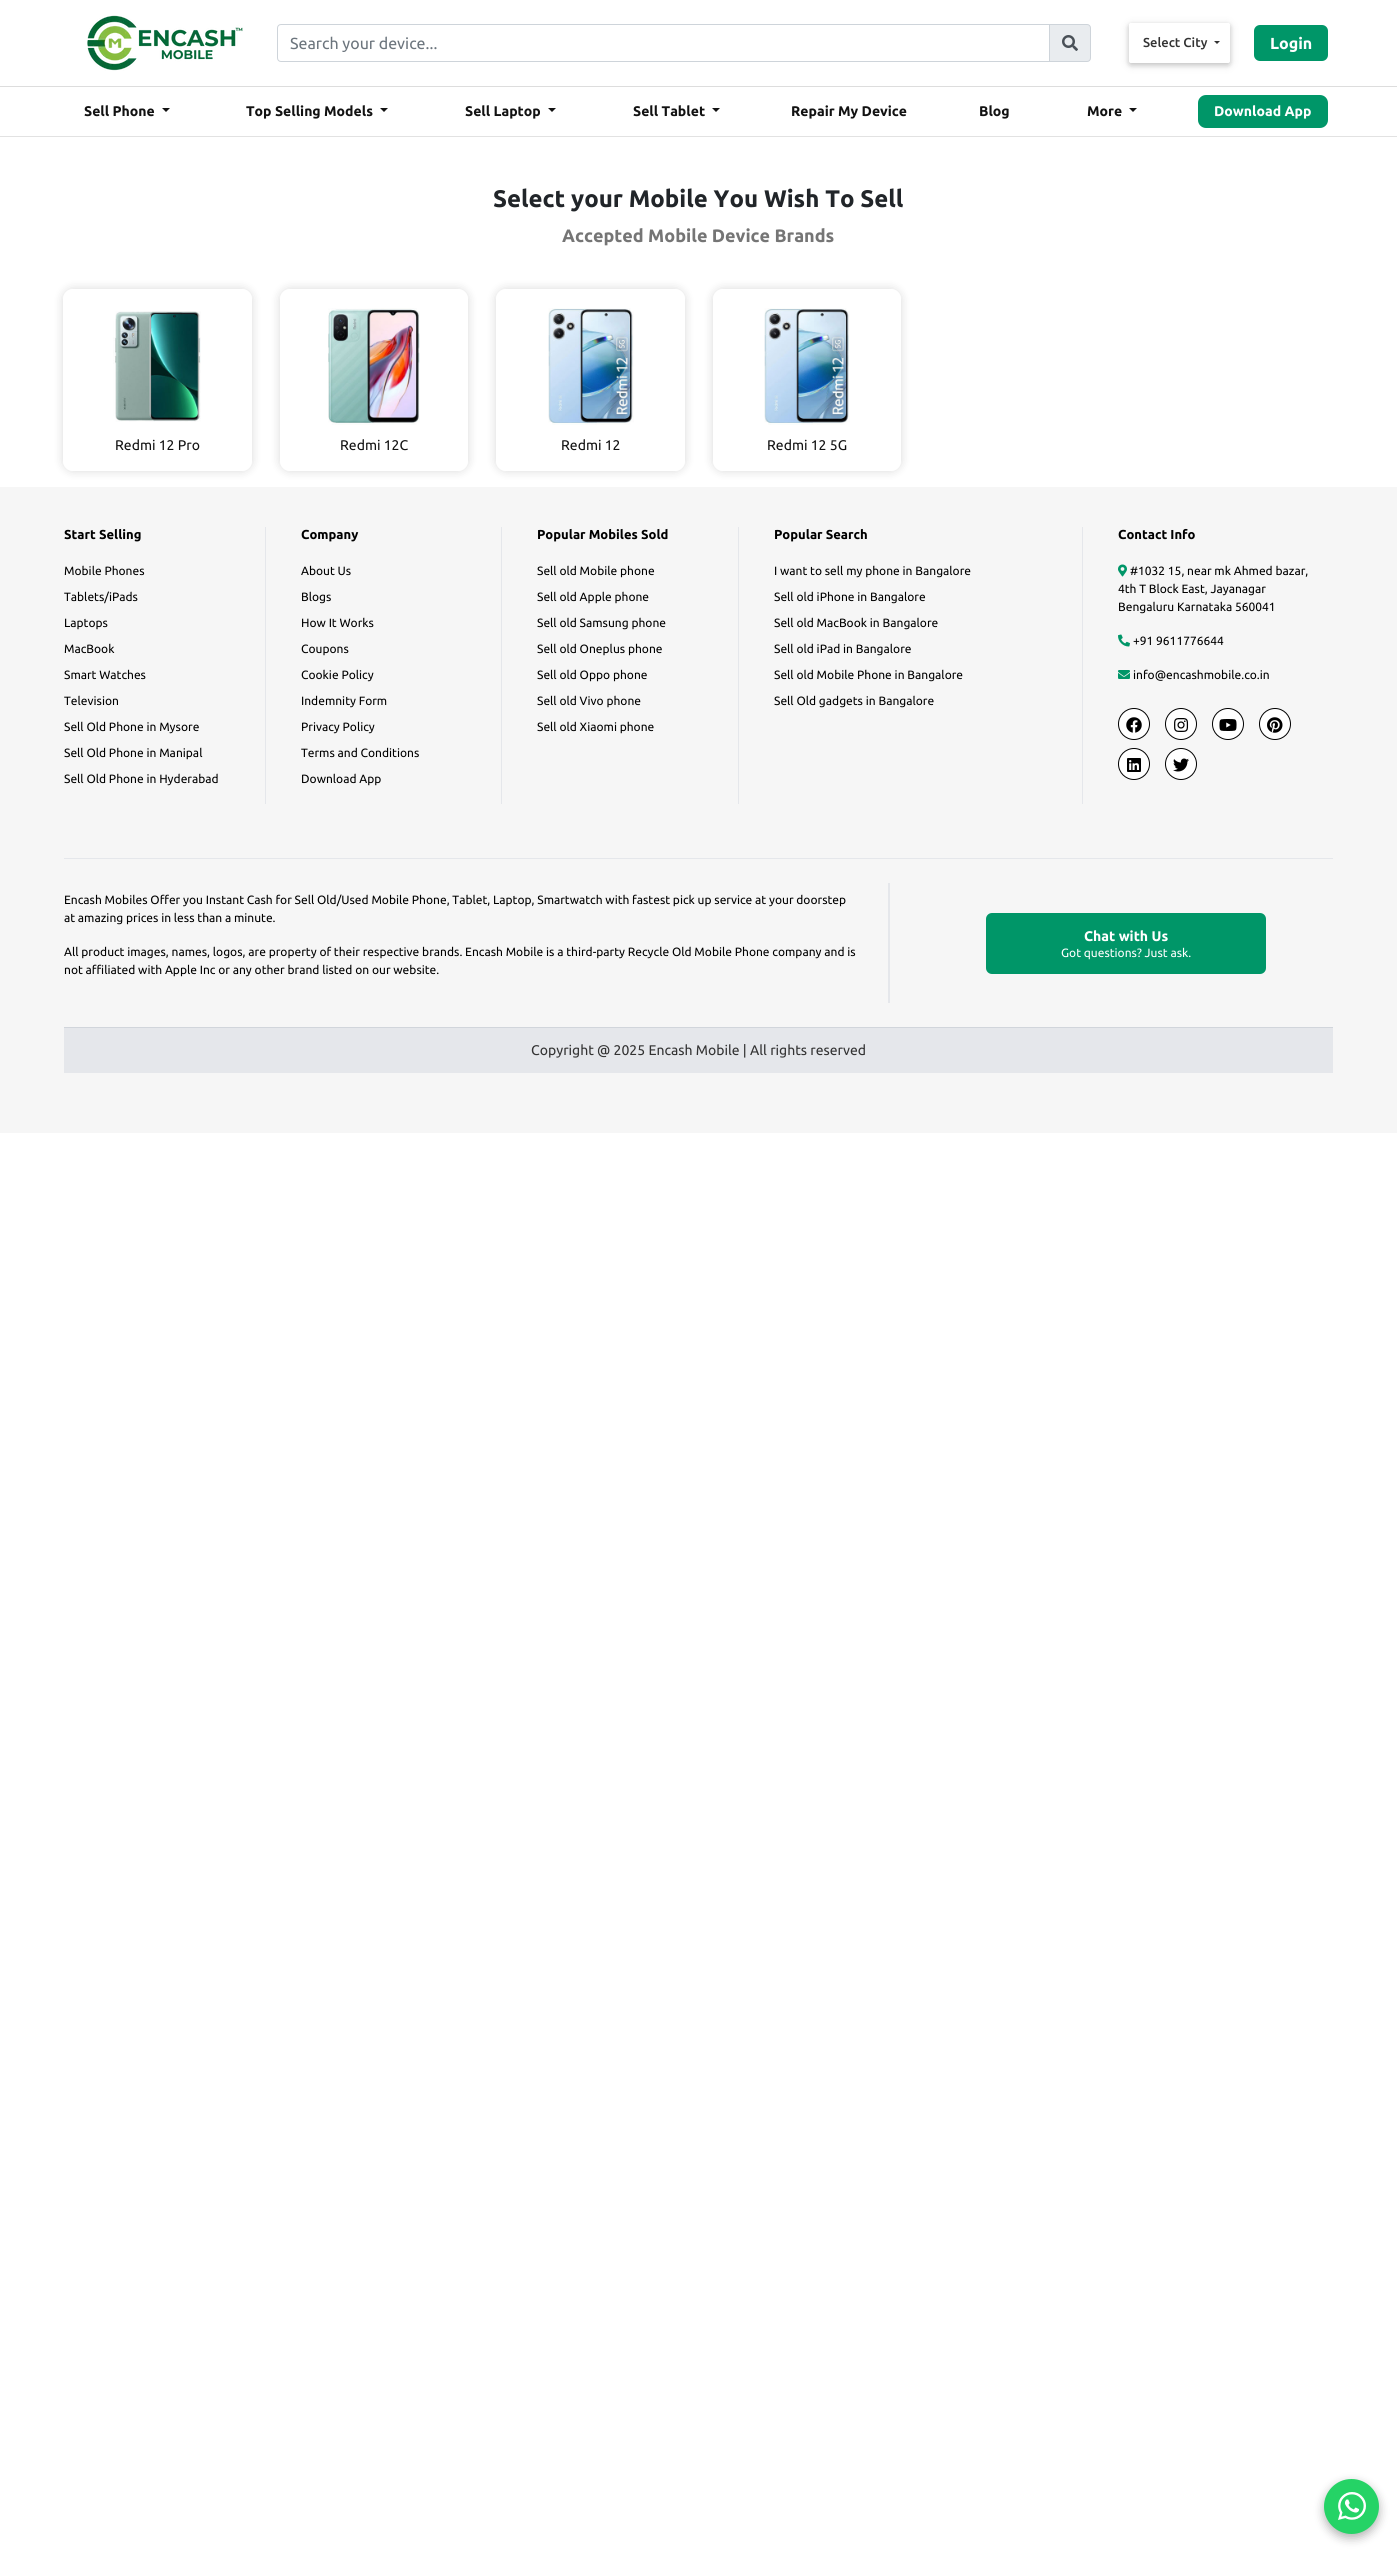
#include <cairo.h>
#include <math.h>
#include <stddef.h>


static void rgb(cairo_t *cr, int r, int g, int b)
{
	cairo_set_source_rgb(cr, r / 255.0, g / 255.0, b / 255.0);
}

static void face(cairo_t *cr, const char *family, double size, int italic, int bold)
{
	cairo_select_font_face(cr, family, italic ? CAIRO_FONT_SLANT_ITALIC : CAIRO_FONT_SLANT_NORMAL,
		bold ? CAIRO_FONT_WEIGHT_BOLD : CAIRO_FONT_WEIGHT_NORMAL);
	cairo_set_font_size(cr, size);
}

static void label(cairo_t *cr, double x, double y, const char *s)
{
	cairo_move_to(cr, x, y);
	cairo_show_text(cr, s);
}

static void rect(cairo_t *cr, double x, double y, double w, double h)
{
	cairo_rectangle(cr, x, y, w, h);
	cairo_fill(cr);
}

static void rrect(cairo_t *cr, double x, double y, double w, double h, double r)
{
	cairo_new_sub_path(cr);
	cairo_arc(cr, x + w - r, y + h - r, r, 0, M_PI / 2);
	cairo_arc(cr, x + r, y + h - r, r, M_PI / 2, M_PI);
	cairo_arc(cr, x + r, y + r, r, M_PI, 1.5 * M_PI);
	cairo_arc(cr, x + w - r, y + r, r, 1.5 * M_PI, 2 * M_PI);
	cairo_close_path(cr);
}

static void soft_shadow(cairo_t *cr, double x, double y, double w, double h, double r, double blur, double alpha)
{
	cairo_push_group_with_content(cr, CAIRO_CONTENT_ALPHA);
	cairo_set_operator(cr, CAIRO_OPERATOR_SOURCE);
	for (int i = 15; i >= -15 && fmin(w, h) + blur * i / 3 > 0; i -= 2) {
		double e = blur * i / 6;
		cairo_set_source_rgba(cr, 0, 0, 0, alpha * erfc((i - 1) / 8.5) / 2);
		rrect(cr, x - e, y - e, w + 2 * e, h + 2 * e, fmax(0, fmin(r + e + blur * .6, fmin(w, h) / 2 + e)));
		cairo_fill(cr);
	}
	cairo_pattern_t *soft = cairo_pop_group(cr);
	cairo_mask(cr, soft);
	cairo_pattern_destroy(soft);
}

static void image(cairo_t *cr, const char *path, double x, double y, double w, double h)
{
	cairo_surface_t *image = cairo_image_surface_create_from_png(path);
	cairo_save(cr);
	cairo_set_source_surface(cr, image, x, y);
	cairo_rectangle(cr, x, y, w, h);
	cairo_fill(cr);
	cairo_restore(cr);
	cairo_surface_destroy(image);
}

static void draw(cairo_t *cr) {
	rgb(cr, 255, 255, 255);
	cairo_paint(cr);
	rgb(cr, 221, 221, 221);
	rect(cr, 0, 86, 1397, 1);
	image(cr, "image0.png", 87, 15, 156, 56);
	rgb(cr, 233, 236, 239);
	cairo_new_path(cr);
	cairo_move_to(cr, 1049.5, 24.5);
	cairo_line_to(cr, 1087, 24.5);
	cairo_curve_to(cr, 1089, 24.5, 1090.5, 26, 1090.5, 28);
	cairo_line_to(cr, 1090.5, 58);
	cairo_curve_to(cr, 1090.5, 60, 1089, 61.5, 1087, 61.5);
	cairo_line_to(cr, 1049.5, 61.5);
	cairo_close_path(cr);
	cairo_fill_preserve(cr);
	rgb(cr, 206, 212, 218);
	cairo_set_line_width(cr, 1);
	cairo_stroke(cr);
	cairo_new_path(cr);
	cairo_move_to(cr, 281, 24.5);
	cairo_line_to(cr, 1049.5, 24.5);
	cairo_line_to(cr, 1049.5, 61.5);
	cairo_line_to(cr, 281, 61.5);
	cairo_curve_to(cr, 279, 61.5, 277.5, 60, 277.5, 58);
	cairo_line_to(cr, 277.5, 28);
	cairo_curve_to(cr, 277.5, 26, 279, 24.5, 281, 24.5);
	cairo_close_path(cr);
	cairo_stroke(cr);
	face(cr, "Ubuntu", 16, 0, 0);
	rgb(cr, 108, 117, 125);
	label(cr, 290, 49, "Search your device...");
	image(cr, "image1.png", 1062, 35, 16, 16);
	cairo_save(cr);
	cairo_set_fill_rule(cr, CAIRO_FILL_RULE_EVEN_ODD);
	cairo_new_path(cr);
	cairo_move_to(cr, 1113, 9);
	cairo_line_to(cr, 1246, 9);
	cairo_line_to(cr, 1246, 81);
	cairo_line_to(cr, 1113, 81);
	cairo_close_path(cr);
	cairo_move_to(cr, 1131, 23);
	cairo_line_to(cr, 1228, 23);
	cairo_curve_to(cr, 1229, 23, 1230, 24, 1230, 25);
	cairo_line_to(cr, 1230, 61);
	cairo_curve_to(cr, 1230, 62, 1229, 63, 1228, 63);
	cairo_line_to(cr, 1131, 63);
	cairo_curve_to(cr, 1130, 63, 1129, 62, 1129, 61);
	cairo_line_to(cr, 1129, 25);
	cairo_curve_to(cr, 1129, 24, 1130, 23, 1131, 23);
	cairo_close_path(cr);
	cairo_clip(cr);
	rgb(cr, 0, 0, 0);
	soft_shadow(cr, 1129, 25, 101, 40, 2, 5, 0.12);
	cairo_restore(cr);
	cairo_save(cr);
	cairo_set_fill_rule(cr, CAIRO_FILL_RULE_EVEN_ODD);
	cairo_new_path(cr);
	cairo_move_to(cr, 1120, 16);
	cairo_line_to(cr, 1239, 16);
	cairo_line_to(cr, 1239, 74);
	cairo_line_to(cr, 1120, 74);
	cairo_close_path(cr);
	cairo_move_to(cr, 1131, 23);
	cairo_line_to(cr, 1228, 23);
	cairo_curve_to(cr, 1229, 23, 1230, 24, 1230, 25);
	cairo_line_to(cr, 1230, 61);
	cairo_curve_to(cr, 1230, 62, 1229, 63, 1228, 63);
	cairo_line_to(cr, 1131, 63);
	cairo_curve_to(cr, 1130, 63, 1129, 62, 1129, 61);
	cairo_line_to(cr, 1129, 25);
	cairo_curve_to(cr, 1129, 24, 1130, 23, 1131, 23);
	cairo_close_path(cr);
	cairo_clip(cr);
	rgb(cr, 0, 0, 0);
	soft_shadow(cr, 1129, 25, 101, 40, 2, 2.5, 0.16);
	cairo_restore(cr);
	face(cr, "Ubuntu Medium", 13, 0, 0);
	rgb(cr, 51, 51, 51);
	label(cr, 1143, 47, "Select City");
	cairo_new_path(cr);
	cairo_move_to(cr, 1214, 41);
	cairo_line_to(cr, 1220, 41);
	cairo_line_to(cr, 1217, 44);
	cairo_close_path(cr);
	cairo_fill(cr);
	rgb(cr, 0, 150, 104);
	rrect(cr, 1254, 25, 74, 36, 6);
	cairo_fill(cr);
	face(cr, "Ubuntu", 16, 0, 1);
	rgb(cr, 255, 255, 255);
	label(cr, 1270, 49, "Login");
	rgb(cr, 226, 226, 226);
	rect(cr, 0, 136, 1397, 1);
	face(cr, "Ubuntu", 14, 0, 1);
	rgb(cr, 18, 18, 18);
	label(cr, 84, 116, "Sell Phone");
	cairo_new_path(cr);
	cairo_move_to(cr, 162, 108);
	cairo_line_to(cr, 170, 108);
	cairo_line_to(cr, 166, 112);
	cairo_close_path(cr);
	cairo_fill(cr);
	label(cr, 246, 116, "Top Selling Models");
	cairo_new_path(cr);
	cairo_move_to(cr, 380, 108);
	cairo_line_to(cr, 388, 108);
	cairo_line_to(cr, 384, 112);
	cairo_close_path(cr);
	cairo_fill(cr);
	label(cr, 465, 116, "Sell Laptop");
	cairo_new_path(cr);
	cairo_move_to(cr, 548, 108);
	cairo_line_to(cr, 556, 108);
	cairo_line_to(cr, 552, 112);
	cairo_close_path(cr);
	cairo_fill(cr);
	label(cr, 633, 116, "Sell Tablet");
	cairo_new_path(cr);
	cairo_move_to(cr, 712, 108);
	cairo_line_to(cr, 720, 108);
	cairo_line_to(cr, 716, 112);
	cairo_close_path(cr);
	cairo_fill(cr);
	label(cr, 791, 116, "Repair My Device");
	label(cr, 979, 116, "Blog");
	label(cr, 1087, 116, "More");
	cairo_new_path(cr);
	cairo_move_to(cr, 1129, 108);
	cairo_line_to(cr, 1137, 108);
	cairo_line_to(cr, 1133, 112);
	cairo_close_path(cr);
	cairo_fill(cr);
	rgb(cr, 0, 150, 104);
	rrect(cr, 1198, 95, 130, 33, 8);
	cairo_fill(cr);
	rgb(cr, 255, 255, 255);
	label(cr, 1214, 116, "Download App");
	face(cr, "Ubuntu", 24, 0, 1);
	rgb(cr, 33, 37, 41);
	label(cr, 493, 207, "Select your Mobile You Wish To Sell");
	face(cr, "Ubuntu", 18, 0, 1);
	rgb(cr, 117, 117, 117);
	label(cr, 562, 242, "Accepted Mobile Device Brands");
	cairo_save(cr);
	cairo_set_fill_rule(cr, CAIRO_FILL_RULE_EVEN_ODD);
	cairo_new_path(cr);
	cairo_move_to(cr, 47, 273);
	cairo_line_to(cr, 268, 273);
	cairo_line_to(cr, 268, 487);
	cairo_line_to(cr, 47, 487);
	cairo_close_path(cr);
	cairo_move_to(cr, 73, 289);
	cairo_line_to(cr, 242, 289);
	cairo_curve_to(cr, 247.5, 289, 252, 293.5, 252, 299);
	cairo_line_to(cr, 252, 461);
	cairo_curve_to(cr, 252, 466.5, 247.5, 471, 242, 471);
	cairo_line_to(cr, 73, 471);
	cairo_curve_to(cr, 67.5, 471, 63, 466.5, 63, 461);
	cairo_line_to(cr, 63, 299);
	cairo_curve_to(cr, 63, 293.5, 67.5, 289, 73, 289);
	cairo_close_path(cr);
	cairo_clip(cr);
	rgb(cr, 0, 0, 0);
	soft_shadow(cr, 63, 289, 189, 182, 10, 5, 0.15);
	cairo_restore(cr);
	image(cr, "image2.png", 113, 311, 88, 111);
	face(cr, "Ubuntu", 14, 0, 0);
	rgb(cr, 18, 18, 18);
	label(cr, 115, 450, "Redmi 12 Pro");
	cairo_save(cr);
	cairo_set_fill_rule(cr, CAIRO_FILL_RULE_EVEN_ODD);
	cairo_new_path(cr);
	cairo_move_to(cr, 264, 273);
	cairo_line_to(cr, 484, 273);
	cairo_line_to(cr, 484, 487);
	cairo_line_to(cr, 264, 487);
	cairo_close_path(cr);
	cairo_move_to(cr, 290, 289);
	cairo_line_to(cr, 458, 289);
	cairo_curve_to(cr, 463.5, 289, 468, 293.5, 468, 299);
	cairo_line_to(cr, 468, 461);
	cairo_curve_to(cr, 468, 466.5, 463.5, 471, 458, 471);
	cairo_line_to(cr, 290, 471);
	cairo_curve_to(cr, 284.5, 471, 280, 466.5, 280, 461);
	cairo_line_to(cr, 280, 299);
	cairo_curve_to(cr, 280, 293.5, 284.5, 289, 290, 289);
	cairo_close_path(cr);
	cairo_clip(cr);
	rgb(cr, 0, 0, 0);
	soft_shadow(cr, 280, 289, 188, 182, 10, 5, 0.15);
	cairo_restore(cr);
	image(cr, "image3.png", 328, 308, 92, 117);
	label(cr, 340, 450, "Redmi 12C");
	cairo_save(cr);
	cairo_set_fill_rule(cr, CAIRO_FILL_RULE_EVEN_ODD);
	cairo_new_path(cr);
	cairo_move_to(cr, 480, 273);
	cairo_line_to(cr, 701, 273);
	cairo_line_to(cr, 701, 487);
	cairo_line_to(cr, 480, 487);
	cairo_close_path(cr);
	cairo_move_to(cr, 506, 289);
	cairo_line_to(cr, 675, 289);
	cairo_curve_to(cr, 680.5, 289, 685, 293.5, 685, 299);
	cairo_line_to(cr, 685, 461);
	cairo_curve_to(cr, 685, 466.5, 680.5, 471, 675, 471);
	cairo_line_to(cr, 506, 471);
	cairo_curve_to(cr, 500.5, 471, 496, 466.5, 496, 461);
	cairo_line_to(cr, 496, 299);
	cairo_curve_to(cr, 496, 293.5, 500.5, 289, 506, 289);
	cairo_close_path(cr);
	cairo_clip(cr);
	rgb(cr, 0, 0, 0);
	soft_shadow(cr, 496, 289, 189, 182, 10, 5, 0.15);
	cairo_restore(cr);
	image(cr, "image4.png", 548, 308, 86, 117);
	label(cr, 561, 450, "Redmi 12");
	cairo_save(cr);
	cairo_set_fill_rule(cr, CAIRO_FILL_RULE_EVEN_ODD);
	cairo_new_path(cr);
	cairo_move_to(cr, 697, 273);
	cairo_line_to(cr, 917, 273);
	cairo_line_to(cr, 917, 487);
	cairo_line_to(cr, 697, 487);
	cairo_close_path(cr);
	cairo_move_to(cr, 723, 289);
	cairo_line_to(cr, 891, 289);
	cairo_curve_to(cr, 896.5, 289, 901, 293.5, 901, 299);
	cairo_line_to(cr, 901, 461);
	cairo_curve_to(cr, 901, 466.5, 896.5, 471, 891, 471);
	cairo_line_to(cr, 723, 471);
	cairo_curve_to(cr, 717.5, 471, 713, 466.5, 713, 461);
	cairo_line_to(cr, 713, 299);
	cairo_curve_to(cr, 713, 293.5, 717.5, 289, 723, 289);
	cairo_close_path(cr);
	cairo_clip(cr);
	rgb(cr, 0, 0, 0);
	soft_shadow(cr, 713, 289, 188, 182, 10, 5, 0.15);
	cairo_restore(cr);
	image(cr, "image4.png", 764, 308, 86, 117);
	label(cr, 767, 450, "Redmi 12 5G");
	rgb(cr, 246, 246, 246);
	rect(cr, 0, 487, 1397, 646);
	rgb(cr, 229, 231, 235);
	rect(cr, 265, 527, 1, 277);
	face(cr, "Ubuntu", 13, 0, 1);
	rgb(cr, 0, 0, 0);
	label(cr, 64, 539, "Start Selling");
	face(cr, "Ubuntu", 12, 0, 0);
	label(cr, 64, 575, "Mobile Phones");
	label(cr, 64, 601, "Tablets/iPads");
	label(cr, 64, 627, "Laptops");
	label(cr, 64, 653, "MacBook");
	label(cr, 64, 679, "Smart Watches");
	label(cr, 64, 705, "Television");
	label(cr, 64, 731, "Sell Old Phone in Mysore");
	label(cr, 64, 757, "Sell Old Phone in Manipal");
	label(cr, 64, 783, "Sell Old Phone in Hyderabad");
	rgb(cr, 229, 231, 235);
	rect(cr, 501, 527, 1, 277);
	face(cr, "Ubuntu", 13, 0, 1);
	rgb(cr, 0, 0, 0);
	label(cr, 301, 539, "Company");
	face(cr, "Ubuntu", 12, 0, 0);
	label(cr, 301, 575, "About Us");
	label(cr, 301, 601, "Blogs");
	label(cr, 301, 627, "How It Works");
	label(cr, 301, 653, "Coupons");
	label(cr, 301, 679, "Cookie Policy");
	label(cr, 301, 705, "Indemnity Form");
	label(cr, 301, 731, "Privacy Policy");
	label(cr, 301, 757, "Terms and Conditions");
	label(cr, 301, 783, "Download App");
	rgb(cr, 229, 231, 235);
	rect(cr, 738, 527, 1, 277);
	face(cr, "Ubuntu", 13, 0, 1);
	rgb(cr, 0, 0, 0);
	label(cr, 537, 539, "Popular Mobiles Sold");
	face(cr, "Ubuntu", 12, 0, 0);
	label(cr, 537, 575, "Sell old Mobile phone");
	label(cr, 537, 601, "Sell old Apple phone");
	label(cr, 537, 627, "Sell old Samsung phone");
	label(cr, 537, 653, "Sell old Oneplus phone");
	label(cr, 537, 679, "Sell old Oppo phone");
	label(cr, 537, 705, "Sell old Vivo phone");
	label(cr, 537, 731, "Sell old Xiaomi phone");
	rgb(cr, 229, 231, 235);
	rect(cr, 1082, 527, 1, 277);
	face(cr, "Ubuntu", 13, 0, 1);
	rgb(cr, 0, 0, 0);
	label(cr, 774, 539, "Popular Search");
	face(cr, "Ubuntu", 12, 0, 0);
	label(cr, 774, 575, "I want to sell my phone in Bangalore");
	label(cr, 774, 601, "Sell old iPhone in Bangalore");
	label(cr, 774, 627, "Sell old MacBook in Bangalore");
	label(cr, 774, 653, "Sell old iPad in Bangalore");
	label(cr, 774, 679, "Sell old Mobile Phone in Bangalore");
	label(cr, 774, 705, "Sell Old gadgets in Bangalore");
	face(cr, "Ubuntu", 13, 0, 1);
	label(cr, 1118, 539, "Contact Info");
	image(cr, "image5.png", 1118, 564, 9, 13);
	face(cr, "Ubuntu", 12, 0, 0);
	label(cr, 1130, 575, "#1032 15, near mk Ahmed bazar,");
	label(cr, 1118, 593, "4th T Block East, Jayanagar");
	label(cr, 1118, 611, "Bengaluru Karnataka 560041");
	image(cr, "image6.png", 1118, 634, 12, 13);
	label(cr, 1133, 645, "+91 9611776644");
	image(cr, "image7.png", 1118, 670, 12, 9);
	label(cr, 1133, 679, "info@encashmobile.co.in");
	rgb(cr, 255, 255, 255);
	cairo_new_path(cr);
	cairo_arc(cr, 1134, 724, 15.5, 0, 2 * M_PI);
	cairo_fill_preserve(cr);
	rgb(cr, 0, 0, 0);
	cairo_stroke(cr);
	image(cr, "image8.png", 1126, 717, 16, 16);
	rgb(cr, 255, 255, 255);
	cairo_arc(cr, 1181, 724, 15.5, 0, 2 * M_PI);
	cairo_fill_preserve(cr);
	rgb(cr, 0, 0, 0);
	cairo_stroke(cr);
	image(cr, "image9.png", 1174, 718, 15, 14);
	rgb(cr, 255, 255, 255);
	cairo_arc(cr, 1228, 724, 15.5, 0, 2 * M_PI);
	cairo_fill_preserve(cr);
	rgb(cr, 0, 0, 0);
	cairo_stroke(cr);
	image(cr, "image10.png", 1219, 719, 18, 12);
	rgb(cr, 255, 255, 255);
	cairo_arc(cr, 1275, 724, 15.5, 0, 2 * M_PI);
	cairo_fill_preserve(cr);
	rgb(cr, 0, 0, 0);
	cairo_stroke(cr);
	image(cr, "image11.png", 1267, 717, 16, 16);
	rgb(cr, 255, 255, 255);
	cairo_arc(cr, 1134, 764, 15.5, 0, 2 * M_PI);
	cairo_fill_preserve(cr);
	rgb(cr, 0, 0, 0);
	cairo_stroke(cr);
	image(cr, "image12.png", 1127, 758, 14, 14);
	rgb(cr, 255, 255, 255);
	cairo_arc(cr, 1181, 764, 15.5, 0, 2 * M_PI);
	cairo_fill_preserve(cr);
	rgb(cr, 0, 0, 0);
	cairo_stroke(cr);
	image(cr, "image13.png", 1173, 758, 16, 14);
	rgb(cr, 229, 231, 235);
	rect(cr, 64, 858, 1269, 1);
	rgb(cr, 0, 0, 0);
	label(cr, 64, 904, "Encash Mobiles Offer you Instant Cash for Sell Old/Used Mobile Phone, Tablet, Laptop, Smartwatch with fastest pick up service at your doorstep");
	label(cr, 64, 922, "at amazing prices in less than a minute.");
	label(cr, 64, 956, "All product images, names, logos, are property of their respective brands. Encash Mobile is a third-party Recycle Old Mobile Phone company and is");
	label(cr, 64, 974, "not affiliated with Apple Inc or any other brand listed on our website.");
	rgb(cr, 229, 231, 235);
	rect(cr, 888, 883, 2, 120);
	rgb(cr, 0, 150, 104);
	rrect(cr, 986, 913, 280, 61, 6);
	cairo_fill(cr);
	face(cr, "Ubuntu", 14, 0, 1);
	rgb(cr, 255, 255, 255);
	label(cr, 1084, 941, "Chat with Us");
	face(cr, "Ubuntu", 12, 0, 0);
	label(cr, 1061, 957, "Got questions? Just ask.");
	rgb(cr, 229, 231, 235);
	rect(cr, 64, 1028, 1269, 45);
	rgb(cr, 209, 213, 219);
	rect(cr, 64, 1027, 1269, 1);
	face(cr, "Ubuntu", 14, 0, 0);
	rgb(cr, 51, 51, 51);
	label(cr, 531, 1055, "Copyright @ 2025 Encash Mobile | All rights reserved");
	rgb(cr, 0, 0, 0);
	soft_shadow(cr, 1324, 2483, 55, 55, 27.5, 5, 0.3);
	rgb(cr, 37, 211, 102);
	cairo_arc(cr, 1351.5, 2506.5, 27.5, 0, 2 * M_PI);
	cairo_fill(cr);
	image(cr, "image14.png", 1338, 2492, 28, 28);
}

int main(void) {
	cairo_surface_t *surface = cairo_image_surface_create(CAIRO_FORMAT_RGB24, 1397, 2554);
	cairo_t *cr = cairo_create(surface);
	cairo_font_options_t *options = cairo_font_options_create();
	cairo_font_options_set_hint_metrics(options, CAIRO_HINT_METRICS_OFF);
	cairo_font_options_set_hint_style(options, CAIRO_HINT_STYLE_NONE);
	cairo_set_font_options(cr, options);
	cairo_set_miter_limit(cr, 4);
	draw(cr);
	cairo_surface_write_to_png(surface, "render.png");
	cairo_font_options_destroy(options);
	cairo_destroy(cr);
	cairo_surface_destroy(surface);
	return 0;
}
